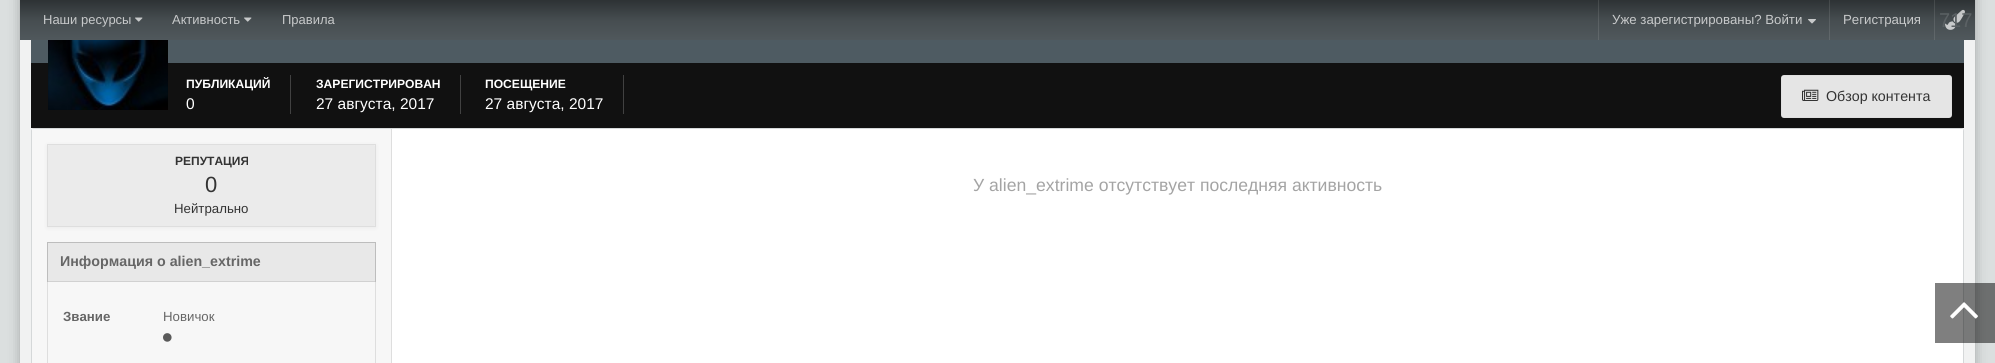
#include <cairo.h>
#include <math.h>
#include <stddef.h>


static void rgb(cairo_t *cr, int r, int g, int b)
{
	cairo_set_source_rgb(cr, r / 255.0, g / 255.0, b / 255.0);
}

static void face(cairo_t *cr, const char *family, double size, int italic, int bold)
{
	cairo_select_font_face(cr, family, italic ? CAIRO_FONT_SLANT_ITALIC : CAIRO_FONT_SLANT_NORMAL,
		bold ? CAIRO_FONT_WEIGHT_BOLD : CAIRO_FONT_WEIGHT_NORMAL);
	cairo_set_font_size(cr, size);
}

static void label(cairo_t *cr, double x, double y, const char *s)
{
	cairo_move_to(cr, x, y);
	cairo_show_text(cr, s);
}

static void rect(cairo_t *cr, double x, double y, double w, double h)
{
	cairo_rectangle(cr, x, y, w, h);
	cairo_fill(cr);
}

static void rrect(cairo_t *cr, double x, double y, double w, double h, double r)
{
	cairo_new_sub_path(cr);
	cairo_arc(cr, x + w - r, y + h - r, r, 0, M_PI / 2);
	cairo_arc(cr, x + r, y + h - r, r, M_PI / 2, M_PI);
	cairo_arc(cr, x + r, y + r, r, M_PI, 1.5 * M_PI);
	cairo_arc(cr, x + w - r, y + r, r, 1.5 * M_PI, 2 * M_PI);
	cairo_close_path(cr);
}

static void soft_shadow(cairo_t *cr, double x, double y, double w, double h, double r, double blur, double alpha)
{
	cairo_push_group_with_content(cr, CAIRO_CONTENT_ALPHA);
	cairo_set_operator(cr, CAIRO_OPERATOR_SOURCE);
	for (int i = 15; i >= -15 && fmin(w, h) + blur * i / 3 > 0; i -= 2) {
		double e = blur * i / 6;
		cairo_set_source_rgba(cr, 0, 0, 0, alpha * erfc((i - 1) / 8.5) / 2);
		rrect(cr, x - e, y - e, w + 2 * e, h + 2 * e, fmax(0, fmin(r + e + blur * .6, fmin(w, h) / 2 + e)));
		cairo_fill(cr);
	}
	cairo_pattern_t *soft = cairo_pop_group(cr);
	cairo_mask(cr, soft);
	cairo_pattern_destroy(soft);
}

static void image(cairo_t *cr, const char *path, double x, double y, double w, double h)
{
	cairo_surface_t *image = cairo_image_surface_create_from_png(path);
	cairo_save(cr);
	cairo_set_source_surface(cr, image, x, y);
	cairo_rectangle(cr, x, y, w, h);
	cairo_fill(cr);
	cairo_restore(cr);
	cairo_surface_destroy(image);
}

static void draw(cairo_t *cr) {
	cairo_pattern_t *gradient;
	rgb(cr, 219, 223, 223);
	cairo_paint(cr);
	rgb(cr, 0, 0, 0);
	soft_shadow(cr, 20, -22, 1955, 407, 4, 6, 0.25);
	rgb(cr, 241, 242, 242);
	rect(cr, 20, 40, 1955, 323);
	rgb(cr, 78, 91, 98);
	rect(cr, 31, 40, 1933, 23);
	rgb(cr, 17, 17, 17);
	rect(cr, 31, 63, 1933, 65);
	image(cr, "image3.png", 48, 40, 120, 70);
	cairo_rectangle(cr, 48.5, -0.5, 119, 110);
	cairo_set_source_rgba(cr, 0, 0, 0, 0.1);
	cairo_set_line_width(cr, 1);
	cairo_stroke(cr);
	gradient = cairo_pattern_create_linear(998, 0, 998, 40);
	cairo_pattern_add_color_stop_rgba(gradient, 0, 0.176, 0.196, 0.204, 1);
	cairo_pattern_add_color_stop_rgba(gradient, 0.5, 0.275, 0.302, 0.314, 1);
	cairo_pattern_add_color_stop_rgba(gradient, 1, 0.314, 0.345, 0.361, 1);
	cairo_set_source(cr, gradient);
	cairo_pattern_destroy(gradient);
	rect(cr, 20, 0, 1955, 40);
	gradient = cairo_pattern_create_linear(998, 0, 998, 40);
	cairo_pattern_add_color_stop_rgba(gradient, 0, 0.259, 0.278, 0.282, 1);
	cairo_pattern_add_color_stop_rgba(gradient, 0.5, 0.349, 0.373, 0.384, 1);
	cairo_pattern_add_color_stop_rgba(gradient, 1, 0.384, 0.412, 0.424, 1);
	cairo_set_source(cr, gradient);
	cairo_pattern_destroy(gradient);
	rect(cr, 1934, 0, 1, 40);
	rect(cr, 1829, 0, 1, 40);
	rect(cr, 1598, 0, 1, 40);
	face(cr, "Liberation Sans", 13, 0, 0);
	rgb(cr, 199, 201, 202);
	label(cr, 43, 24, "Наши ресурсы");
	image(cr, "image0.png", 135, 17, 8, 5);
	label(cr, 172, 24, "Активность");
	image(cr, "image0.png", 244, 17, 8, 5);
	label(cr, 282, 24, "Правила");
	face(cr, "Liberation Sans", 13.25, 0, 0);
	label(cr, 1612, 24, "Уже зарегистрированы? Войти");
	image(cr, "image1.png", 1808, 19, 8, 5);
	label(cr, 1843, 24, "Регистрация");
	image(cr, "image2.png", 1945, 9, 20, 21);
	face(cr, "Liberation Sans", 20, 0, 0);
	rgb(cr, 91, 97, 100);
	label(cr, 1939, 27, "717");
	rgb(cr, 65, 65, 65);
	rect(cr, 290, 75, 1, 39);
	face(cr, "Liberation Sans", 12.1, 0, 1);
	rgb(cr, 255, 255, 255);
	label(cr, 186, 88, "ПУБЛИКАЦИЙ");
	face(cr, "Liberation Sans", 15.5, 0, 0);
	label(cr, 186, 109, "0");
	rgb(cr, 65, 65, 65);
	rect(cr, 460, 75, 1, 39);
	face(cr, "Liberation Sans", 12.1, 0, 1);
	rgb(cr, 255, 255, 255);
	label(cr, 316, 88, "ЗАРЕГИСТРИРОВАН");
	face(cr, "Liberation Sans", 15.5, 0, 0);
	label(cr, 316, 109, "27 августа, 2017");
	rgb(cr, 65, 65, 65);
	rect(cr, 623, 75, 1, 39);
	face(cr, "Liberation Sans", 12.1, 0, 1);
	rgb(cr, 255, 255, 255);
	label(cr, 485, 88, "ПОСЕЩЕНИЕ");
	face(cr, "Liberation Sans", 15.5, 0, 0);
	label(cr, 485, 109, "27 августа, 2017");
	rgb(cr, 229, 229, 229);
	rrect(cr, 1781, 75, 171, 43, 3);
	cairo_fill(cr);
	cairo_rectangle(cr, 1781.5, 75.5, 170, 42);
	cairo_set_source_rgba(cr, 0, 0, 0, 0.03);
	cairo_stroke(cr);
	image(cr, "image4.png", 1802, 89, 17, 12);
	face(cr, "Liberation Sans", 14.25, 0, 0);
	rgb(cr, 51, 51, 51);
	label(cr, 1826, 101, "Обзор контента");
	rgb(cr, 255, 255, 255);
	rrect(cr, 31, 128, 1933, 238, 3);
	cairo_fill(cr);
	rrect(cr, 31.5, 128.5, 1932, 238, 2.5);
	cairo_set_source_rgba(cr, 0.443, 0.486, 0.506, 0.3);
	cairo_stroke(cr);
	rgb(cr, 247, 247, 247);
	rect(cr, 32, 129, 359, 234);
	rgb(cr, 222, 222, 222);
	rect(cr, 391, 129, 1, 234);
	rgb(cr, 0, 0, 0);
	soft_shadow(cr, 47, 145, 329, 83, 0, 2, 0.05);
	cairo_rectangle(cr, 47.5, 144.5, 328, 82);
	rgb(cr, 222, 222, 222);
	cairo_stroke(cr);
	rgb(cr, 235, 235, 235);
	rrect(cr, 48, 145, 327, 81, 2);
	cairo_fill(cr);
	face(cr, "Liberation Sans", 12, 0, 1);
	rgb(cr, 51, 51, 51);
	label(cr, 175, 165, "РЕПУТАЦИЯ");
	face(cr, "Liberation Sans", 22, 0, 0);
	label(cr, 205, 192, "0");
	face(cr, "Liberation Sans", 13.25, 0, 0);
	label(cr, 174, 213, "Нейтрально");
	cairo_rectangle(cr, 47.5, 242.5, 328, 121);
	rgb(cr, 222, 222, 222);
	cairo_stroke(cr);
	cairo_set_source_rgba(cr, 0, 0, 0, 0.06);
	rect(cr, 47, 242, 329, 40);
	cairo_rectangle(cr, 47.5, 242.5, 328, 39);
	cairo_set_source_rgba(cr, 0, 0, 0, 0.1);
	cairo_stroke(cr);
	face(cr, "Liberation Sans", 14.25, 0, 1);
	rgb(cr, 102, 102, 102);
	label(cr, 60, 266, "Информация о alien_extrime");
	face(cr, "Liberation Sans", 13.25, 0, 1);
	label(cr, 63, 321, "Звание");
	face(cr, "Liberation Sans", 13.25, 0, 0);
	label(cr, 163, 321, "Новичок");
	image(cr, "image5.png", 163, 333, 9, 9);
	rgb(cr, 255, 255, 255);
	rect(cr, 1961, 129, 2, 2);
	face(cr, "Liberation Sans", 17.6, 0, 0);
	rgb(cr, 164, 164, 164);
	label(cr, 973, 191, "У alien_extrime отсутствует последняя активность");
	cairo_set_source_rgba(cr, 0, 0, 0, 0.5);
	rect(cr, 1935, 283, 60, 60);
	image(cr, "image6.png", 1950, 302, 28, 17);
}

int main(void) {
	cairo_surface_t *surface = cairo_image_surface_create(CAIRO_FORMAT_RGB24, 1995, 363);
	cairo_t *cr = cairo_create(surface);
	cairo_font_options_t *options = cairo_font_options_create();
	cairo_font_options_set_hint_metrics(options, CAIRO_HINT_METRICS_OFF);
	cairo_font_options_set_hint_style(options, CAIRO_HINT_STYLE_NONE);
	cairo_set_font_options(cr, options);
	cairo_set_miter_limit(cr, 4);
	draw(cr);
	cairo_surface_write_to_png(surface, "render.png");
	cairo_font_options_destroy(options);
	cairo_destroy(cr);
	cairo_surface_destroy(surface);
	return 0;
}
